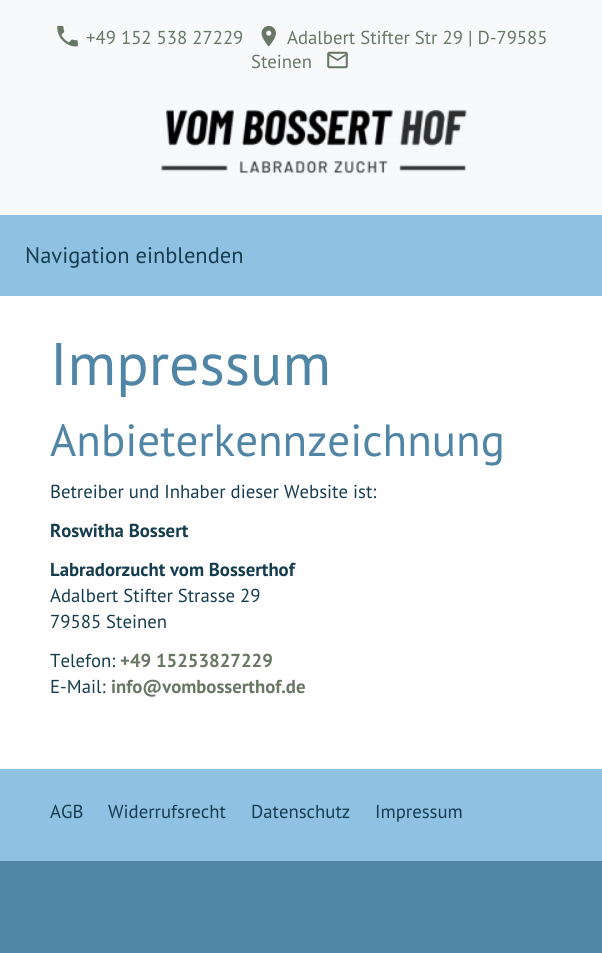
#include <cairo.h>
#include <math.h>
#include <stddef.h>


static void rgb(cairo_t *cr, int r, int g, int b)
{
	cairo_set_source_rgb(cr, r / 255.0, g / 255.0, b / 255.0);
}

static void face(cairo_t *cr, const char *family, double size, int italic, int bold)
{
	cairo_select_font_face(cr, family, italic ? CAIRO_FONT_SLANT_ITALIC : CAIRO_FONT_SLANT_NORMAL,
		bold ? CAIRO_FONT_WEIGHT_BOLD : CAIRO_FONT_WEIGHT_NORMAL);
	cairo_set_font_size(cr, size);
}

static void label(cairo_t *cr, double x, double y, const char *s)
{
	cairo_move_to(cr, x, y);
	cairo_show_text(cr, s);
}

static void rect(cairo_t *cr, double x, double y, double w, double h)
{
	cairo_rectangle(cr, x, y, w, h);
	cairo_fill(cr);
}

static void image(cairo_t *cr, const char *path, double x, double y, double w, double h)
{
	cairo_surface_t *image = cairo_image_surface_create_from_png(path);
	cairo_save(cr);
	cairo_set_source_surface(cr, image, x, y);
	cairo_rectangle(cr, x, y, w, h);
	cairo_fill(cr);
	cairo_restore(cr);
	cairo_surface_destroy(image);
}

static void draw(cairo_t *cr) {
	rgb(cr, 80, 133, 165);
	cairo_paint(cr);
	rgb(cr, 247, 249, 251);
	rect(cr, 0, 0, 602, 215);
	image(cr, "image0.png", 57, 25, 21, 22);
	face(cr, "PT Sans", 18.75, 0, 0);
	rgb(cr, 104, 120, 100);
	label(cr, 86, 44, "+49 152 538 27229");
	image(cr, "image1.png", 261, 25, 15, 22);
	label(cr, 287, 44, "Adalbert Stifter Str 29 | D-79585");
	label(cr, 251, 68, "Steinen");
	image(cr, "image2.png", 327, 51, 21, 18);
	image(cr, "image3.png", 161, 109, 306, 65);
	rgb(cr, 143, 193, 227);
	rect(cr, 0, 215, 602, 81);
	face(cr, "PT Sans", 22.5, 0, 0);
	rgb(cr, 22, 60, 79);
	label(cr, 25, 263, "Navigation einblenden");
	rgb(cr, 255, 255, 255);
	rect(cr, 0, 296, 602, 473);
	face(cr, "PT Sans", 60, 0, 0);
	rgb(cr, 80, 133, 165);
	label(cr, 50, 385, "Impressum");
	face(cr, "PT Sans", 45, 0, 0);
	label(cr, 50, 456, "Anbieterkennzeichnung");
	face(cr, "PT Sans", 18.75, 0, 0);
	rgb(cr, 22, 60, 79);
	label(cr, 50, 498, "Betreiber und Inhaber dieser Website ist:");
	face(cr, "PT Sans", 18.75, 0, 1);
	label(cr, 50, 537, "Roswitha Bossert");
	label(cr, 50, 576, "Labradorzucht vom Bosserthof");
	face(cr, "PT Sans", 18.75, 0, 0);
	label(cr, 50, 602, "Adalbert Stifter Strasse 29");
	label(cr, 50, 628, "79585 Steinen");
	label(cr, 50, 667, "Telefon:");
	face(cr, "PT Sans", 18.75, 0, 1);
	rgb(cr, 104, 120, 100);
	label(cr, 120, 667, "+49 15253827229");
	face(cr, "PT Sans", 18.75, 0, 0);
	rgb(cr, 22, 60, 79);
	label(cr, 50, 693, "E-Mail:");
	face(cr, "PT Sans", 18.75, 0, 1);
	rgb(cr, 104, 120, 100);
	label(cr, 111, 693, "info@vombosserthof.de");
	rgb(cr, 143, 193, 227);
	rect(cr, 0, 769, 602, 92);
	face(cr, "PT Sans", 18.75, 0, 0);
	rgb(cr, 22, 60, 79);
	label(cr, 50, 818, "AGB");
	label(cr, 108, 818, "Widerrufsrecht");
	label(cr, 251, 818, "Datenschutz");
	label(cr, 375, 818, "Impressum");
}

int main(void) {
	cairo_surface_t *surface = cairo_image_surface_create(CAIRO_FORMAT_RGB24, 602, 953);
	cairo_t *cr = cairo_create(surface);
	cairo_font_options_t *options = cairo_font_options_create();
	cairo_font_options_set_hint_metrics(options, CAIRO_HINT_METRICS_OFF);
	cairo_font_options_set_hint_style(options, CAIRO_HINT_STYLE_NONE);
	cairo_set_font_options(cr, options);
	cairo_set_miter_limit(cr, 4);
	draw(cr);
	cairo_surface_write_to_png(surface, "render.png");
	cairo_font_options_destroy(options);
	cairo_destroy(cr);
	cairo_surface_destroy(surface);
	return 0;
}
